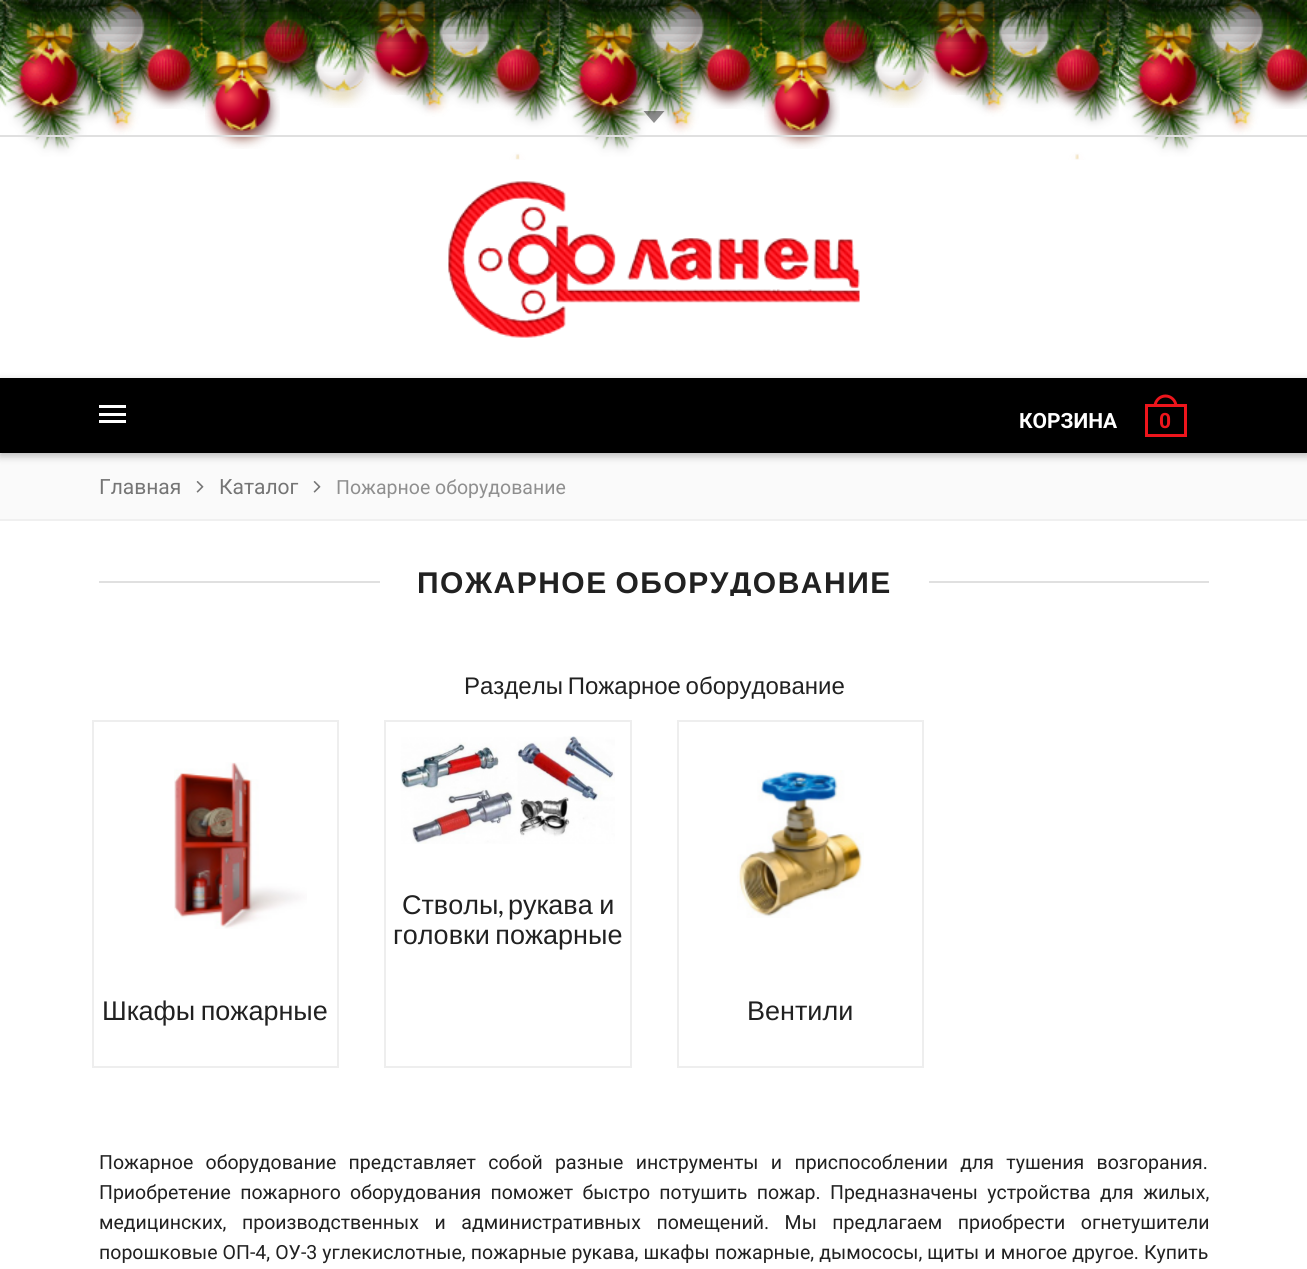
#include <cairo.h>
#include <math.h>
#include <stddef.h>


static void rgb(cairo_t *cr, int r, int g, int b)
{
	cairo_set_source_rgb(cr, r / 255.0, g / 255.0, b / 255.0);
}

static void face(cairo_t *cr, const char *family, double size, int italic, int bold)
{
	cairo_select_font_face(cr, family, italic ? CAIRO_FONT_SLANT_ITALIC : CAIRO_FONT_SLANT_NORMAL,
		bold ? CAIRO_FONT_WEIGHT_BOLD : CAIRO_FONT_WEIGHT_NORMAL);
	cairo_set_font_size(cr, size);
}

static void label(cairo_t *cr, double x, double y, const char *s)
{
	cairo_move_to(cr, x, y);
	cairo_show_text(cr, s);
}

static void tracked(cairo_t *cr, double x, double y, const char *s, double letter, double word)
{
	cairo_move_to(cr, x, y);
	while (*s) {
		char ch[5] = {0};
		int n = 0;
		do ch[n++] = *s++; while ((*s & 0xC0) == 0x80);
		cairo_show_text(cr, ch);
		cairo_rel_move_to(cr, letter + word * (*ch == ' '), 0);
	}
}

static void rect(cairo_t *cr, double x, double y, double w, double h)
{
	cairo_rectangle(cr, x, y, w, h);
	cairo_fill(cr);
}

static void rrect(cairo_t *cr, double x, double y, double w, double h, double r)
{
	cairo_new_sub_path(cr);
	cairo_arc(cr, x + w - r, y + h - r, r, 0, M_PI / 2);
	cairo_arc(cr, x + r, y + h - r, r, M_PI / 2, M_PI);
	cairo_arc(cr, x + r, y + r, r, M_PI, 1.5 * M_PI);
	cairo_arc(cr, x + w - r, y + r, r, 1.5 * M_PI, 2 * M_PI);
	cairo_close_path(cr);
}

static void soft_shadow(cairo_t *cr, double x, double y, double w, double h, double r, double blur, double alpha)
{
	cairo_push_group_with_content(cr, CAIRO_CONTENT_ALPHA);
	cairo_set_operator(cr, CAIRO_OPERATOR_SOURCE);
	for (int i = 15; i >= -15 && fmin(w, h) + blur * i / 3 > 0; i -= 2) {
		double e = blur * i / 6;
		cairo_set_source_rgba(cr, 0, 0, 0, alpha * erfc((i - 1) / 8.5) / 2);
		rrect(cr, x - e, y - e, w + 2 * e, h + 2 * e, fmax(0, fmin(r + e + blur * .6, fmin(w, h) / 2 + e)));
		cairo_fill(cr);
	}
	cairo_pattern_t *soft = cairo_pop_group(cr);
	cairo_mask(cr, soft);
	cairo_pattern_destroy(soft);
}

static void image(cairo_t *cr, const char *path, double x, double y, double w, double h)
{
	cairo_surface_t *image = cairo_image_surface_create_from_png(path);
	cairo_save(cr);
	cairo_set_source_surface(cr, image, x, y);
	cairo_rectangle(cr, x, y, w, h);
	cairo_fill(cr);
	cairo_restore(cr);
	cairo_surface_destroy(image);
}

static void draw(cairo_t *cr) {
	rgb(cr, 255, 255, 255);
	cairo_paint(cr);
	image(cr, "image0.png", 0, 0, 1307, 160);
	image(cr, "image2.png", 10, 0, 78, 123);
	image(cr, "image1.png", 0, 0, 38, 107);
	image(cr, "image4.png", 81, 0, 73, 70);
	image(cr, "image3.png", 37, 0, 92, 40);
	image(cr, "image5.png", 205, 0, 75, 149);
	image(cr, "image6.png", 255, 0, 61, 80);
	image(cr, "image12.png", 306, 9, 68, 99);
	image(cr, "image7.png", 265, 0, 43, 46);
	image(cr, "image9.png", 365, 0, 73, 95);
	image(cr, "image8.png", 307, 0, 76, 75);
	image(cr, "image10.png", 431, 0, 69, 73);
	image(cr, "image11.png", 137, 13, 62, 96);
	image(cr, "image15.png", 487, 15, 63, 95);
	image(cr, "image13.png", 433, 0, 118, 42);
	image(cr, "image14.png", 550, 0, 10, 104);
	image(cr, "image17.png", 569, 0, 78, 123);
	image(cr, "image16.png", 559, 0, 38, 107);
	image(cr, "image19.png", 640, 0, 74, 70);
	image(cr, "image18.png", 597, 0, 91, 40);
	image(cr, "image20.png", 764, 0, 76, 149);
	image(cr, "image21.png", 814, 0, 61, 80);
	image(cr, "image27.png", 866, 9, 67, 99);
	image(cr, "image22.png", 825, 0, 42, 46);
	image(cr, "image24.png", 925, 0, 73, 95);
	image(cr, "image23.png", 867, 0, 75, 75);
	image(cr, "image25.png", 990, 0, 69, 73);
	image(cr, "image26.png", 697, 13, 62, 96);
	image(cr, "image30.png", 1047, 15, 62, 95);
	image(cr, "image28.png", 993, 0, 117, 42);
	image(cr, "image29.png", 1110, 0, 9, 104);
	image(cr, "image32.png", 1129, 0, 78, 123);
	image(cr, "image31.png", 1119, 0, 38, 107);
	image(cr, "image34.png", 1200, 0, 73, 70);
	image(cr, "image33.png", 1156, 0, 92, 40);
	image(cr, "image35.png", 1256, 13, 51, 96);
	rgb(cr, 0, 0, 0);
	soft_shadow(cr, 0, -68, 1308, 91, 0, 22.5, 0.75);
	rgb(cr, 224, 224, 224);
	rect(cr, 0, 135, 1307, 2);
	cairo_set_source_rgba(cr, 0.129, 0.129, 0.129, 0.5);
	cairo_new_path(cr);
	cairo_move_to(cr, 643.5, 111);
	cairo_line_to(cr, 664.5, 111);
	cairo_line_to(cr, 654, 123);
	cairo_close_path(cr);
	cairo_fill(cr);
	image(cr, "image36.png", 448, 181, 412, 157);
	rgb(cr, 250, 250, 250);
	rect(cr, 0, 453, 1307, 66);
	rgb(cr, 0, 0, 0);
	soft_shadow(cr, 0, 381, 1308, 75, 0, 4, 0.26);
	rgb(cr, 0, 0, 0);
	rect(cr, 0, 378, 1307, 75);
	rgb(cr, 255, 255, 255);
	rect(cr, 99, 405, 27, 3);
	rect(cr, 99, 413, 27, 3);
	rect(cr, 99, 420, 27, 3);
	face(cr, "Roboto", 21, 0, 1);
	label(cr, 1019, 428, "КОРЗИНА");
	rgb(cr, 237, 21, 28);
	cairo_set_fill_rule(cr, CAIRO_FILL_RULE_EVEN_ODD);
	cairo_new_path(cr);
	cairo_move_to(cr, 1165.5, 394.5);
	cairo_curve_to(cr, 1172, 394.5, 1177.5, 400, 1177.5, 406.5);
	cairo_line_to(cr, 1153.5, 406.5);
	cairo_curve_to(cr, 1153.5, 400, 1159, 394.5, 1165.5, 394.5);
	cairo_close_path(cr);
	cairo_move_to(cr, 1165.5, 397.5);
	cairo_curve_to(cr, 1170.5, 397.5, 1174.5, 401.5, 1174.5, 406.5);
	cairo_line_to(cr, 1156.5, 406.5);
	cairo_curve_to(cr, 1156.5, 401.5, 1160.5, 397.5, 1165.5, 397.5);
	cairo_close_path(cr);
	cairo_fill(cr);
	cairo_rectangle(cr, 1146.5, 405.5, 39, 30);
	cairo_set_line_width(cr, 3);
	cairo_stroke(cr);
	label(cr, 1159, 428, "0");
	cairo_save(cr);
	cairo_set_fill_rule(cr, CAIRO_FILL_RULE_WINDING);
	cairo_rectangle(cr, 0, 453, 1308, 68);
	cairo_clip(cr);
	rgb(cr, 240, 240, 240);
	cairo_set_fill_rule(cr, CAIRO_FILL_RULE_EVEN_ODD);
	cairo_new_path(cr);
	cairo_move_to(cr, -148, 304);
	cairo_line_to(cr, 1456, 304);
	cairo_line_to(cr, 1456, 669);
	cairo_line_to(cr, -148, 669);
	cairo_close_path(cr);
	cairo_move_to(cr, 0, 448);
	cairo_line_to(cr, 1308, 448);
	cairo_curve_to(cr, 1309, 448, 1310, 449, 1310, 450);
	cairo_line_to(cr, 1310, 518);
	cairo_curve_to(cr, 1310, 518, 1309, 519, 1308, 519);
	cairo_line_to(cr, 0, 519);
	cairo_curve_to(cr, -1, 519, -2, 518, -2, 518);
	cairo_line_to(cr, -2, 450);
	cairo_curve_to(cr, -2, 449, -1, 448, 0, 448);
	cairo_close_path(cr);
	cairo_fill(cr);
	cairo_restore(cr);
	face(cr, "Roboto", 21, 0, 0);
	rgb(cr, 117, 117, 117);
	label(cr, 99, 494, "Главная");
	image(cr, "image37.png", 196, 481, 8, 12);
	label(cr, 219, 494, "Каталог");
	image(cr, "image37.png", 313, 481, 8, 12);
	face(cr, "Roboto", 19.5, 0, 0);
	rgb(cr, 143, 143, 143);
	label(cr, 336, 494, "Пожарное оборудование");
	rgb(cr, 224, 224, 224);
	rect(cr, 99, 581, 281, 2);
	cairo_save(cr);
	cairo_set_fill_rule(cr, CAIRO_FILL_RULE_WINDING);
	cairo_rectangle(cr, 99, 566, 1110, 30);
	cairo_clip(cr);
	face(cr, "Liberation Sans", 30, 0, 1);
	rgb(cr, 33, 33, 33);
	tracked(cr, 417, 593, "ПОЖАРНОЕ ОБОРУДОВАНИЕ", 1.5, -2);
	cairo_restore(cr);
	rect(cr, 929, 581, 280, 2);
	face(cr, "Liberation Sans", 24, 0, 0);
	rgb(cr, 33, 33, 33);
	tracked(cr, 464, 694, "Разделы Пожарное оборудование", 0, -2);
	cairo_rectangle(cr, 385, 721, 246, 346);
	rgb(cr, 238, 238, 238);
	cairo_set_line_width(cr, 2);
	cairo_stroke(cr);
	image(cr, "image38.png", 400, 736, 215, 108);
	face(cr, "Liberation Sans", 27, 0, 0);
	rgb(cr, 33, 33, 33);
	label(cr, 402, 914, "Стволы");
	face(cr, "Lato", 27, 0, 0);
	label(cr, 498, 914, ",");
	face(cr, "Liberation Sans", 27, 0, 0);
	tracked(cr, 508, 914, "рукава и", 0, -1);
	tracked(cr, 393, 944, "головки пожарные", 0, -2);
	cairo_rectangle(cr, 93, 721, 245, 346);
	rgb(cr, 238, 238, 238);
	cairo_stroke(cr);
	image(cr, "image39.png", 174, 762, 133, 167);
	rgb(cr, 33, 33, 33);
	tracked(cr, 102, 1020, "Шкафы пожарные", 0, -2);
	cairo_rectangle(cr, 678, 721, 245, 346);
	rgb(cr, 238, 238, 238);
	cairo_stroke(cr);
	image(cr, "image40.png", 737, 770, 127, 148);
	rgb(cr, 33, 33, 33);
	label(cr, 747, 1020, "Вентили");
	face(cr, "Roboto", 19.5, 0, 0);
	tracked(cr, 99, 1169, "Пожарное оборудование представляет собой разные инструменты и приспособлении для тушения возгорания.", 0, 7.5);
	tracked(cr, 99, 1199, "Приобретение пожарного оборудования поможет быстро потушить пожар. Предназначены устройства для жилых,", 0, 4.5);
	tracked(cr, 99, 1229, "медицинских, производственных и административных помещений. Мы предлагаем приобрести огнетушители", 0, 10.75);
	tracked(cr, 99, 1259, "порошковые ОП-4, ОУ-3 углекислотные, пожарные рукава, шкафы пожарные, дымососы, щиты и многое другое. Купить", 0, 0.25);
}

int main(void) {
	cairo_surface_t *surface = cairo_image_surface_create(CAIRO_FORMAT_RGB24, 1307, 1269);
	cairo_t *cr = cairo_create(surface);
	cairo_font_options_t *options = cairo_font_options_create();
	cairo_font_options_set_hint_metrics(options, CAIRO_HINT_METRICS_OFF);
	cairo_font_options_set_hint_style(options, CAIRO_HINT_STYLE_NONE);
	cairo_set_font_options(cr, options);
	cairo_set_miter_limit(cr, 4);
	draw(cr);
	cairo_surface_write_to_png(surface, "render.png");
	cairo_font_options_destroy(options);
	cairo_destroy(cr);
	cairo_surface_destroy(surface);
	return 0;
}
